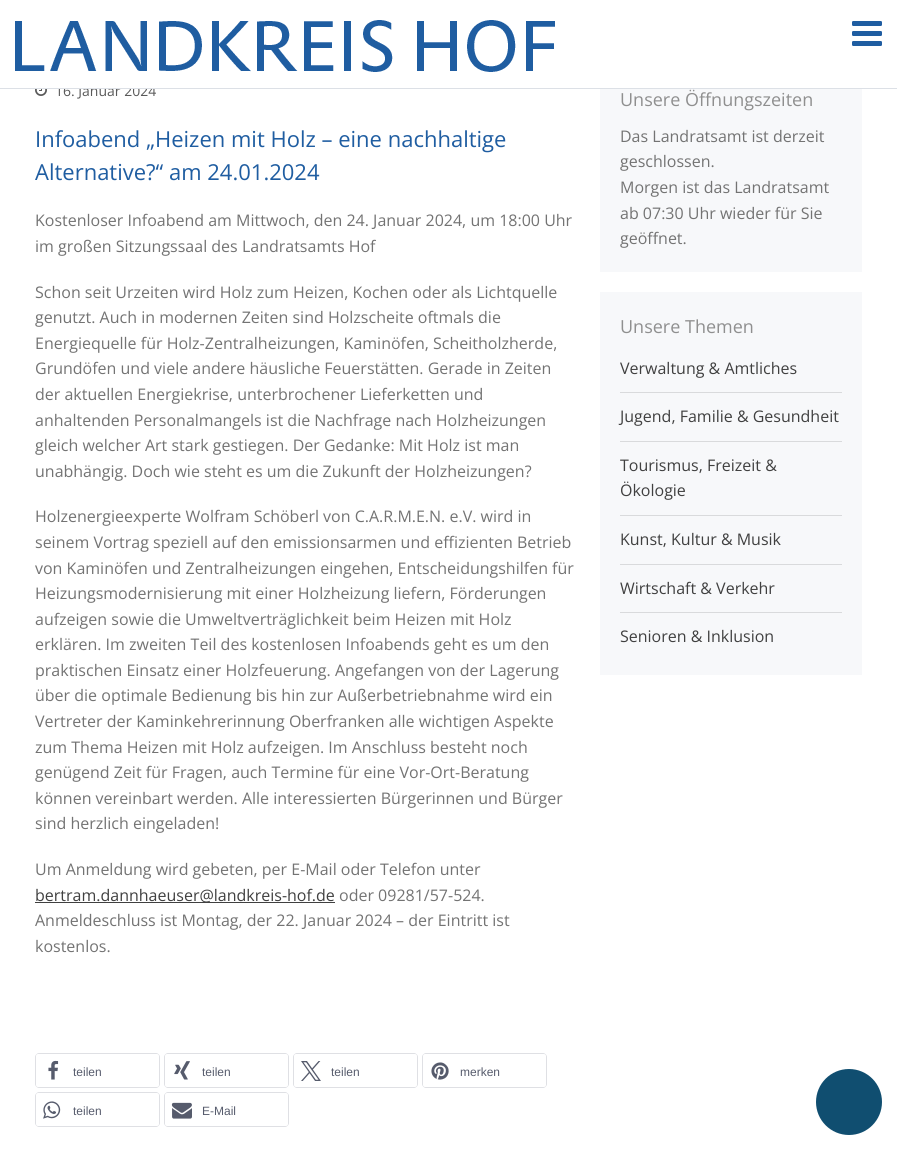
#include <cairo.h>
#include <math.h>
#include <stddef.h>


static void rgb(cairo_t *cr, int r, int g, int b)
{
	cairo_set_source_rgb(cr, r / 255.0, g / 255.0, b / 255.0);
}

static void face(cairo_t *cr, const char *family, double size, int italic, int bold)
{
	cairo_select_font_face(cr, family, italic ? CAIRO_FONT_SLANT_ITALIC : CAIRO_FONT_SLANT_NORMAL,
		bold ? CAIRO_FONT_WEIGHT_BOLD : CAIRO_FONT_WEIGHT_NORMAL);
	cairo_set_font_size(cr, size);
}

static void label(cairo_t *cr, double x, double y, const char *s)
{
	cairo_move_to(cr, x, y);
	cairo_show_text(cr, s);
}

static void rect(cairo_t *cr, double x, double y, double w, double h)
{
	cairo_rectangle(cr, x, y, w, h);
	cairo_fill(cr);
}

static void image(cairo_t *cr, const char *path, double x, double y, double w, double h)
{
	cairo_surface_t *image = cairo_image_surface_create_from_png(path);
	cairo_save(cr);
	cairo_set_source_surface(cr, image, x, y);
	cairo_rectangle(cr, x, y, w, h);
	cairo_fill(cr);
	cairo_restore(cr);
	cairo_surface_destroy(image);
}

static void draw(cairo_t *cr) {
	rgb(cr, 255, 255, 255);
	cairo_paint(cr);
	face(cr, "Open Sans", 14, 0, 0);
	rgb(cr, 89, 89, 89);
	label(cr, 55, 96, "16. Januar 2024");
	rgb(cr, 255, 255, 255);
	rect(cr, 56, 85, 99, 3);
	rgb(cr, 220, 224, 230);
	rect(cr, 0, 88, 897, 1);
	image(cr, "image0.png", 15, 20, 540, 52);
	image(cr, "image1.png", 852, 21, 30, 25);
	image(cr, "image2.png", 35, 89, 12, 7);
	face(cr, "Open Sans", 22, 0, 0);
	rgb(cr, 31, 93, 161);
	label(cr, 35, 147, "Infoabend „Heizen mit Holz – eine nachhaltige");
	label(cr, 35, 180, "Alternative?“ am 24.01.2024");
	face(cr, "Open Sans", 16, 0, 0);
	rgb(cr, 115, 115, 115);
	label(cr, 35, 226, "Kostenloser Infoabend am Mittwoch, den 24. Januar 2024, um 18:00 Uhr");
	label(cr, 35, 252, "im großen Sitzungssaal des Landratsamts Hof");
	label(cr, 35, 298, "Schon seit Urzeiten wird Holz zum Heizen, Kochen oder als Lichtquelle");
	label(cr, 35, 323, "genutzt. Auch in modernen Zeiten sind Holzscheite oftmals die");
	label(cr, 35, 349, "Energiequelle für Holz-Zentralheizungen, Kaminöfen, Scheitholzherde,");
	label(cr, 35, 374, "Grundöfen und viele andere häusliche Feuerstätten. Gerade in Zeiten");
	label(cr, 35, 400, "der aktuellen Energiekrise, unterbrochener Lieferketten und");
	label(cr, 35, 426, "anhaltenden Personalmangels ist die Nachfrage nach Holzheizungen");
	label(cr, 35, 451, "gleich welcher Art stark gestiegen. Der Gedanke: Mit Holz ist man");
	label(cr, 35, 477, "unabhängig. Doch wie steht es um die Zukunft der Holzheizungen?");
	label(cr, 35, 522, "Holzenergieexperte Wolfram Schöberl von C.A.R.M.E.N. e.V. wird in");
	label(cr, 35, 548, "seinem Vortrag speziell auf den emissionsarmen und effizienten Betrieb");
	label(cr, 35, 574, "von Kaminöfen und Zentralheizungen eingehen, Entscheidungshilfen für");
	label(cr, 35, 599, "Heizungsmodernisierung mit einer Holzheizung liefern, Förderungen");
	label(cr, 35, 625, "aufzeigen sowie die Umweltverträglichkeit beim Heizen mit Holz");
	label(cr, 35, 650, "erklären. Im zweiten Teil des kostenlosen Infoabends geht es um den");
	label(cr, 35, 676, "praktischen Einsatz einer Holzfeuerung. Angefangen von der Lagerung");
	label(cr, 35, 701, "über die optimale Bedienung bis hin zur Außerbetriebnahme wird ein");
	label(cr, 35, 727, "Vertreter der Kaminkehrerinnung Oberfranken alle wichtigen Aspekte");
	label(cr, 35, 753, "zum Thema Heizen mit Holz aufzeigen. Im Anschluss besteht noch");
	label(cr, 35, 778, "genügend Zeit für Fragen, auch Termine für eine Vor-Ort-Beratung");
	label(cr, 35, 804, "können vereinbart werden. Alle interessierten Bürgerinnen und Bürger");
	label(cr, 35, 829, "sind herzlich eingeladen!");
	label(cr, 35, 875, "Um Anmeldung wird gebeten, per E-Mail oder Telefon unter");
	rgb(cr, 64, 64, 64);
	rect(cr, 35, 902, 300, 1);
	label(cr, 35, 901, "bertram.dannhaeuser@landkreis-hof.de");
	rgb(cr, 115, 115, 115);
	label(cr, 339, 901, "oder 09281/57-524.");
	label(cr, 35, 926, "Anmeldeschluss ist Montag, der 22. Januar 2024 – der Eintritt ist");
	label(cr, 35, 952, "kostenlos.");
	rgb(cr, 223, 224, 228);
	cairo_set_fill_rule(cr, CAIRO_FILL_RULE_EVEN_ODD);
	cairo_new_path(cr);
	cairo_move_to(cr, 39, 1053);
	cairo_curve_to(cr, 37, 1053, 35, 1055, 35, 1057);
	cairo_line_to(cr, 35, 1084);
	cairo_curve_to(cr, 35, 1086, 37, 1088, 39, 1088);
	cairo_line_to(cr, 156, 1088);
	cairo_curve_to(cr, 158, 1088, 160, 1086, 160, 1084);
	cairo_line_to(cr, 160, 1057);
	cairo_curve_to(cr, 160, 1055, 158, 1053, 156, 1053);
	cairo_close_path(cr);
	cairo_move_to(cr, 38, 1054);
	cairo_curve_to(cr, 37, 1054, 36, 1055, 36, 1056);
	cairo_line_to(cr, 36, 1085);
	cairo_curve_to(cr, 36, 1086, 37, 1087, 38, 1087);
	cairo_line_to(cr, 157, 1087);
	cairo_curve_to(cr, 158, 1087, 159, 1086, 159, 1085);
	cairo_line_to(cr, 159, 1056);
	cairo_curve_to(cr, 159, 1055, 158, 1054, 157, 1054);
	cairo_close_path(cr);
	cairo_fill(cr);
	image(cr, "image3.png", 48, 1060, 11, 20);
	face(cr, "Liberation Sans", 12, 0, 0);
	rgb(cr, 86, 91, 108);
	label(cr, 73, 1076, "teilen");
	rgb(cr, 223, 224, 228);
	cairo_new_path(cr);
	cairo_move_to(cr, 168, 1053);
	cairo_curve_to(cr, 166, 1053, 164, 1055, 164, 1057);
	cairo_line_to(cr, 164, 1084);
	cairo_curve_to(cr, 164, 1086, 166, 1088, 168, 1088);
	cairo_line_to(cr, 285, 1088);
	cairo_curve_to(cr, 287, 1088, 289, 1086, 289, 1084);
	cairo_line_to(cr, 289, 1057);
	cairo_curve_to(cr, 289, 1055, 287, 1053, 285, 1053);
	cairo_close_path(cr);
	cairo_move_to(cr, 167, 1054);
	cairo_curve_to(cr, 166, 1054, 165, 1055, 165, 1056);
	cairo_line_to(cr, 165, 1085);
	cairo_curve_to(cr, 165, 1086, 166, 1087, 167, 1087);
	cairo_line_to(cr, 286, 1087);
	cairo_curve_to(cr, 287, 1087, 288, 1086, 288, 1085);
	cairo_line_to(cr, 288, 1056);
	cairo_curve_to(cr, 288, 1055, 287, 1054, 286, 1054);
	cairo_close_path(cr);
	cairo_fill(cr);
	image(cr, "image4.png", 174, 1061, 16, 19);
	rgb(cr, 86, 91, 108);
	label(cr, 202, 1076, "teilen");
	rgb(cr, 223, 224, 228);
	cairo_new_path(cr);
	cairo_move_to(cr, 297, 1053);
	cairo_curve_to(cr, 295, 1053, 293, 1055, 293, 1057);
	cairo_line_to(cr, 293, 1084);
	cairo_curve_to(cr, 293, 1086, 295, 1088, 297, 1088);
	cairo_line_to(cr, 414, 1088);
	cairo_curve_to(cr, 416, 1088, 418, 1086, 418, 1084);
	cairo_line_to(cr, 418, 1057);
	cairo_curve_to(cr, 418, 1055, 416, 1053, 414, 1053);
	cairo_close_path(cr);
	cairo_move_to(cr, 296, 1054);
	cairo_curve_to(cr, 295, 1054, 294, 1055, 294, 1056);
	cairo_line_to(cr, 294, 1085);
	cairo_curve_to(cr, 294, 1086, 295, 1087, 296, 1087);
	cairo_line_to(cr, 415, 1087);
	cairo_curve_to(cr, 416, 1087, 417, 1086, 417, 1085);
	cairo_line_to(cr, 417, 1056);
	cairo_curve_to(cr, 417, 1055, 416, 1054, 415, 1054);
	cairo_close_path(cr);
	cairo_fill(cr);
	image(cr, "image5.png", 301, 1061, 20, 20);
	rgb(cr, 86, 91, 108);
	label(cr, 331, 1076, "teilen");
	rgb(cr, 223, 224, 228);
	cairo_new_path(cr);
	cairo_move_to(cr, 426, 1053);
	cairo_curve_to(cr, 424, 1053, 422, 1055, 422, 1057);
	cairo_line_to(cr, 422, 1084);
	cairo_curve_to(cr, 422, 1086, 424, 1088, 426, 1088);
	cairo_line_to(cr, 543, 1088);
	cairo_curve_to(cr, 545, 1088, 547, 1086, 547, 1084);
	cairo_line_to(cr, 547, 1057);
	cairo_curve_to(cr, 547, 1055, 545, 1053, 543, 1053);
	cairo_close_path(cr);
	cairo_move_to(cr, 425, 1054);
	cairo_curve_to(cr, 424, 1054, 423, 1055, 423, 1056);
	cairo_line_to(cr, 423, 1085);
	cairo_curve_to(cr, 423, 1086, 424, 1087, 425, 1087);
	cairo_line_to(cr, 544, 1087);
	cairo_curve_to(cr, 545, 1087, 546, 1086, 546, 1085);
	cairo_line_to(cr, 546, 1056);
	cairo_curve_to(cr, 546, 1055, 545, 1054, 544, 1054);
	cairo_close_path(cr);
	cairo_fill(cr);
	image(cr, "image6.png", 431, 1062, 18, 18);
	rgb(cr, 86, 91, 108);
	label(cr, 460, 1076, "merken");
	rgb(cr, 223, 224, 228);
	cairo_new_path(cr);
	cairo_move_to(cr, 39, 1092);
	cairo_curve_to(cr, 37, 1092, 35, 1094, 35, 1096);
	cairo_line_to(cr, 35, 1123);
	cairo_curve_to(cr, 35, 1125, 37, 1127, 39, 1127);
	cairo_line_to(cr, 156, 1127);
	cairo_curve_to(cr, 158, 1127, 160, 1125, 160, 1123);
	cairo_line_to(cr, 160, 1096);
	cairo_curve_to(cr, 160, 1094, 158, 1092, 156, 1092);
	cairo_close_path(cr);
	cairo_move_to(cr, 38, 1093);
	cairo_curve_to(cr, 37, 1093, 36, 1094, 36, 1095);
	cairo_line_to(cr, 36, 1124);
	cairo_curve_to(cr, 36, 1125, 37, 1126, 38, 1126);
	cairo_line_to(cr, 157, 1126);
	cairo_curve_to(cr, 158, 1126, 159, 1125, 159, 1124);
	cairo_line_to(cr, 159, 1095);
	cairo_curve_to(cr, 159, 1094, 158, 1093, 157, 1093);
	cairo_close_path(cr);
	cairo_fill(cr);
	image(cr, "image7.png", 43, 1101, 18, 18);
	rgb(cr, 86, 91, 108);
	label(cr, 73, 1115, "teilen");
	rgb(cr, 223, 224, 228);
	cairo_new_path(cr);
	cairo_move_to(cr, 168, 1092);
	cairo_curve_to(cr, 166, 1092, 164, 1094, 164, 1096);
	cairo_line_to(cr, 164, 1123);
	cairo_curve_to(cr, 164, 1125, 166, 1127, 168, 1127);
	cairo_line_to(cr, 285, 1127);
	cairo_curve_to(cr, 287, 1127, 289, 1125, 289, 1123);
	cairo_line_to(cr, 289, 1096);
	cairo_curve_to(cr, 289, 1094, 287, 1092, 285, 1092);
	cairo_close_path(cr);
	cairo_move_to(cr, 167, 1093);
	cairo_curve_to(cr, 166, 1093, 165, 1094, 165, 1095);
	cairo_line_to(cr, 165, 1124);
	cairo_curve_to(cr, 165, 1125, 166, 1126, 167, 1126);
	cairo_line_to(cr, 286, 1126);
	cairo_curve_to(cr, 287, 1126, 288, 1125, 288, 1124);
	cairo_line_to(cr, 288, 1095);
	cairo_curve_to(cr, 288, 1094, 287, 1093, 286, 1093);
	cairo_close_path(cr);
	cairo_fill(cr);
	image(cr, "image8.png", 171, 1102, 21, 17);
	rgb(cr, 86, 91, 108);
	label(cr, 202, 1115, "E-Mail");
	rgb(cr, 247, 248, 250);
	rect(cr, 600, 89, 262, 183);
	face(cr, "Open Sans", 18, 0, 0);
	rgb(cr, 143, 143, 143);
	label(cr, 620, 106, "Unsere Öffnungszeiten");
	face(cr, "Open Sans", 16, 0, 0);
	rgb(cr, 115, 115, 115);
	label(cr, 620, 142, "Das Landratsamt ist derzeit");
	label(cr, 620, 167, "geschlossen.");
	label(cr, 620, 193, "Morgen ist das Landratsamt");
	label(cr, 620, 219, "ab 07:30 Uhr wieder für Sie");
	label(cr, 620, 244, "geöffnet.");
	rgb(cr, 247, 248, 250);
	rect(cr, 600, 292, 262, 383);
	face(cr, "Open Sans", 18, 0, 0);
	rgb(cr, 143, 143, 143);
	label(cr, 620, 333, "Unsere Themen");
	rgb(cr, 217, 218, 220);
	rect(cr, 620, 392, 222, 1);
	face(cr, "Open Sans", 16, 0, 0);
	rgb(cr, 64, 64, 64);
	label(cr, 620, 374, "Verwaltung & Amtliches");
	rgb(cr, 217, 218, 220);
	rect(cr, 620, 441, 222, 1);
	rgb(cr, 64, 64, 64);
	label(cr, 620, 422, "Jugend, Familie & Gesundheit");
	rgb(cr, 217, 218, 220);
	rect(cr, 620, 515, 222, 1);
	rgb(cr, 64, 64, 64);
	label(cr, 620, 471, "Tourismus, Freizeit &");
	label(cr, 620, 496, "Ökologie");
	rgb(cr, 217, 218, 220);
	rect(cr, 620, 564, 222, 1);
	rgb(cr, 64, 64, 64);
	label(cr, 620, 545, "Kunst, Kultur & Musik");
	rgb(cr, 217, 218, 220);
	rect(cr, 620, 612, 222, 1);
	rgb(cr, 64, 64, 64);
	label(cr, 620, 594, "Wirtschaft & Verkehr");
	label(cr, 620, 642, "Senioren & Inklusion");
	rgb(cr, 16, 78, 112);
	cairo_new_path(cr);
	cairo_arc(cr, 849, 1102, 33, 0, 2 * M_PI);
	cairo_fill(cr);
}

int main(void) {
	cairo_surface_t *surface = cairo_image_surface_create(CAIRO_FORMAT_RGB24, 897, 1150);
	cairo_t *cr = cairo_create(surface);
	cairo_font_options_t *options = cairo_font_options_create();
	cairo_font_options_set_hint_metrics(options, CAIRO_HINT_METRICS_OFF);
	cairo_font_options_set_hint_style(options, CAIRO_HINT_STYLE_NONE);
	cairo_set_font_options(cr, options);
	cairo_set_miter_limit(cr, 4);
	draw(cr);
	cairo_surface_write_to_png(surface, "render.png");
	cairo_font_options_destroy(options);
	cairo_destroy(cr);
	cairo_surface_destroy(surface);
	return 0;
}
